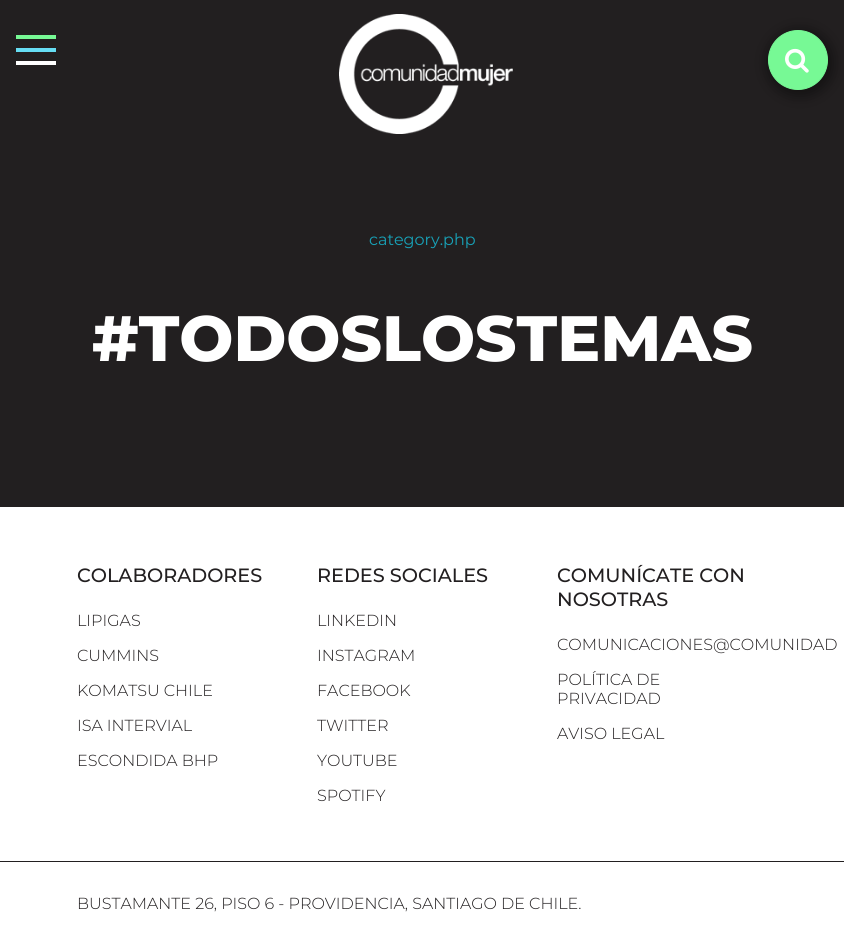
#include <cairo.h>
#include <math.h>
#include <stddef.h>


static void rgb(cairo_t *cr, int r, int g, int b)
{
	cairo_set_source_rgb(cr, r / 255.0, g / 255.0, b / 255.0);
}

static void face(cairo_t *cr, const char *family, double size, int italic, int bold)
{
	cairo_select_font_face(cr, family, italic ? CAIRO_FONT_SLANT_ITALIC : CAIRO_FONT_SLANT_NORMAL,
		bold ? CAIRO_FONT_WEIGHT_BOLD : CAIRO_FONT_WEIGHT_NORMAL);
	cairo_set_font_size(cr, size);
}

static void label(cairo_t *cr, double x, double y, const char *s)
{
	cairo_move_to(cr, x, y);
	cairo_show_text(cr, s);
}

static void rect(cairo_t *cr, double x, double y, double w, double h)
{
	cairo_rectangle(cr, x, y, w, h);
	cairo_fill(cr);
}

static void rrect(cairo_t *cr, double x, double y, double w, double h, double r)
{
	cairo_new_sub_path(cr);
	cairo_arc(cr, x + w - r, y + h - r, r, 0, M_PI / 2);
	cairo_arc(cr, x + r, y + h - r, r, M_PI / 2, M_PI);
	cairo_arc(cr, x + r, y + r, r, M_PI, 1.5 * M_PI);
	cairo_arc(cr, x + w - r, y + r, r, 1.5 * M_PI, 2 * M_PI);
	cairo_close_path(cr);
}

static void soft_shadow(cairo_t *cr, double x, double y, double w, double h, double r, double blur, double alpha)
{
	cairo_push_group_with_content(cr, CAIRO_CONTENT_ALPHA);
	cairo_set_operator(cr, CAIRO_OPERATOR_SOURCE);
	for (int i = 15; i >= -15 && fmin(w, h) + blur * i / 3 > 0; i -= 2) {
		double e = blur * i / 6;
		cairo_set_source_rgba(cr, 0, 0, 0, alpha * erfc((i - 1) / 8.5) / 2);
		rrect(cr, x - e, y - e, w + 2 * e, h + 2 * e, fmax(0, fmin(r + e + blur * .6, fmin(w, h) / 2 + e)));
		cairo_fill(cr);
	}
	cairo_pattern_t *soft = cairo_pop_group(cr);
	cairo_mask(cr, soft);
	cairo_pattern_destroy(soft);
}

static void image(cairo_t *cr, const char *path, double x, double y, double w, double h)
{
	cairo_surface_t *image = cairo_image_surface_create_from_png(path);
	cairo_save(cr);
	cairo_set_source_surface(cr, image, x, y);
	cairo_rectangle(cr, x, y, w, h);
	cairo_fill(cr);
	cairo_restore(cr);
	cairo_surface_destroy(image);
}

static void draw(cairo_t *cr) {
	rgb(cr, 255, 255, 255);
	cairo_paint(cr);
	rgb(cr, 34, 31, 32);
	rect(cr, 0, 0, 844, 507);
	rgb(cr, 119, 249, 149);
	rect(cr, 16, 35, 40, 4);
	rgb(cr, 102, 221, 243);
	rect(cr, 16, 48, 40, 4);
	rgb(cr, 255, 255, 255);
	rect(cr, 16, 61, 40, 4);
	image(cr, "image0.png", 339, 14, 174, 120);
	rgb(cr, 0, 0, 0);
	soft_shadow(cr, 767, 30, 66, 66, 33, 7, 0.45);
	rgb(cr, 119, 249, 149);
	cairo_arc(cr, 798, 60, 29.5, 0, 2 * M_PI);
	cairo_fill_preserve(cr);
	cairo_set_line_width(cr, 1);
	cairo_stroke(cr);
	image(cr, "image1.png", 785, 48, 24, 25);
	face(cr, "Montserrat", 16, 0, 0);
	rgb(cr, 23, 162, 184);
	label(cr, 369, 245, "category.php");
	face(cr, "Montserrat ExtraBold", 64, 0, 0);
	rgb(cr, 255, 255, 255);
	label(cr, 92, 361, "#TODOSLOSTEMAS");
	face(cr, "Montserrat Medium", 19.25, 0, 0);
	rgb(cr, 34, 31, 32);
	label(cr, 77, 582, "COLABORADORES");
	face(cr, "Montserrat Light", 16, 0, 0);
	label(cr, 77, 626, "LIPIGAS");
	label(cr, 77, 661, "CUMMINS");
	label(cr, 77, 696, "KOMATSU CHILE");
	label(cr, 77, 731, "ISA INTERVIAL");
	label(cr, 77, 766, "ESCONDIDA BHP");
	face(cr, "Montserrat Medium", 19.25, 0, 0);
	label(cr, 317, 582, "REDES SOCIALES");
	face(cr, "Montserrat Light", 16, 0, 0);
	label(cr, 317, 626, "LINKEDIN");
	label(cr, 317, 661, "INSTAGRAM");
	label(cr, 317, 696, "FACEBOOK");
	label(cr, 317, 731, "TWITTER");
	label(cr, 317, 766, "YOUTUBE");
	label(cr, 317, 801, "SPOTIFY");
	face(cr, "Montserrat Medium", 19.25, 0, 0);
	label(cr, 557, 582, "COMUNÍCATE CON");
	label(cr, 557, 606, "NOSOTRAS");
	face(cr, "Montserrat Light", 16, 0, 0);
	label(cr, 557, 650, "COMUNICACIONES@COMUNIDAD");
	label(cr, 557, 685, "POLÍTICA DE");
	label(cr, 557, 704, "PRIVACIDAD");
	label(cr, 557, 739, "AVISO LEGAL");
	rect(cr, 0, 861, 844, 1);
	label(cr, 77, 909, "BUSTAMANTE 26, PISO 6 - PROVIDENCIA, SANTIAGO DE CHILE.");
}

int main(void) {
	cairo_surface_t *surface = cairo_image_surface_create(CAIRO_FORMAT_RGB24, 844, 939);
	cairo_t *cr = cairo_create(surface);
	cairo_font_options_t *options = cairo_font_options_create();
	cairo_font_options_set_hint_metrics(options, CAIRO_HINT_METRICS_OFF);
	cairo_font_options_set_hint_style(options, CAIRO_HINT_STYLE_NONE);
	cairo_set_font_options(cr, options);
	cairo_set_miter_limit(cr, 4);
	draw(cr);
	cairo_surface_write_to_png(surface, "render.png");
	cairo_font_options_destroy(options);
	cairo_destroy(cr);
	cairo_surface_destroy(surface);
	return 0;
}
